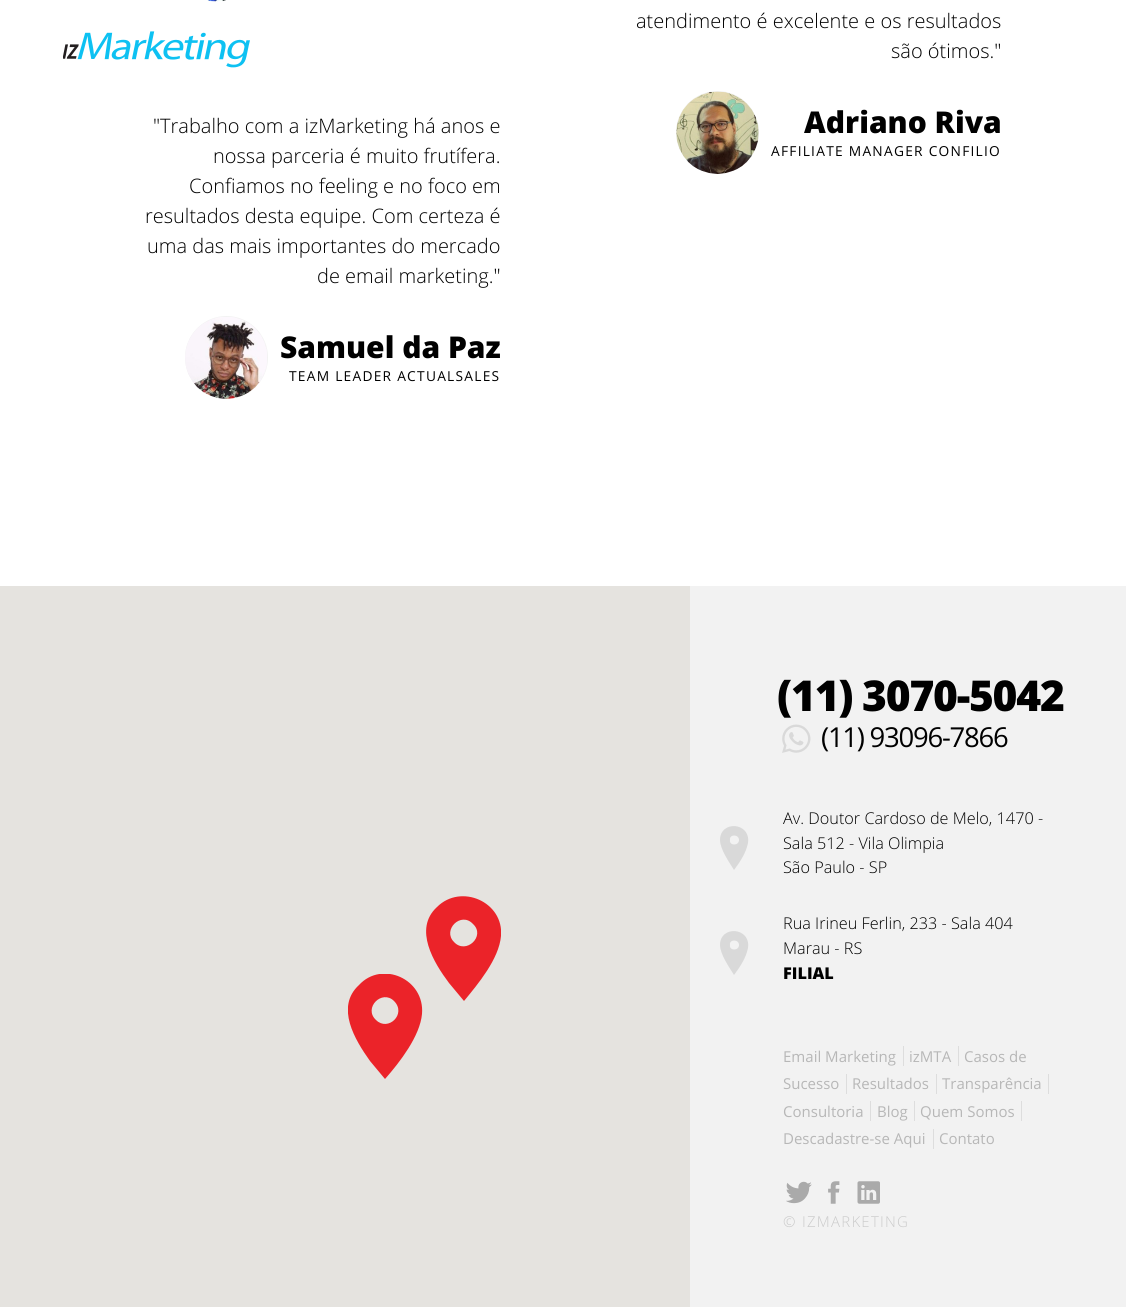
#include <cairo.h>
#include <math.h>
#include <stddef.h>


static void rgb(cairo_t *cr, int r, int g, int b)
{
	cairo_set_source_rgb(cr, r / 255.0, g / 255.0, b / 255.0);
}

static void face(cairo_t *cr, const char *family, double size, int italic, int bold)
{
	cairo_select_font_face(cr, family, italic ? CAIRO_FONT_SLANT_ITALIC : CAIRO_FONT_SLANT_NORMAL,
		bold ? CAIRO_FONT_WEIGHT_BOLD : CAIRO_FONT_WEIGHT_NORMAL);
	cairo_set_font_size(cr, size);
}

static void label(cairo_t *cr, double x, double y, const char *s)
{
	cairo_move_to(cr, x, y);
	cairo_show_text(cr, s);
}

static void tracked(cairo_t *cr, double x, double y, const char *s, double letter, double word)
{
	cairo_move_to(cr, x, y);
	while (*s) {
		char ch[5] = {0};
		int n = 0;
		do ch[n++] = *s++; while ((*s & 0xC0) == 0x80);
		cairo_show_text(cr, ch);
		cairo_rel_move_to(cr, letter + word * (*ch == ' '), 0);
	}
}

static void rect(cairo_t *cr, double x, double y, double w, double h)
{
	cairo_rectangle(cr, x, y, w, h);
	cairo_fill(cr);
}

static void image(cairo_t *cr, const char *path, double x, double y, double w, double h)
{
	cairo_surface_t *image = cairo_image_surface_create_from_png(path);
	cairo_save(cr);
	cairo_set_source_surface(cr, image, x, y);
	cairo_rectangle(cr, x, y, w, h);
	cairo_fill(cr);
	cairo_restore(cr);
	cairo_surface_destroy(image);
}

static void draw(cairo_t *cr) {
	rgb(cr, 255, 255, 255);
	cairo_paint(cr);
	image(cr, "image0.png", 207, 0, 19, 2);
	face(cr, "Open Sans Light", 20, 0, 0);
	rgb(cr, 0, 0, 0);
	label(cr, 636, 28, "atendimento é excelente e os resultados");
	label(cr, 891, 58, "são ótimos.\"");
	rgb(cr, 242, 242, 242);
	cairo_new_path(cr);
	cairo_arc(cr, 717.5, 132.5, 41.5, 0, 2 * M_PI);
	cairo_fill(cr);
	image(cr, "image1.png", 676, 91, 83, 83);
	face(cr, "Open Sans ExtraBold", 30, 0, 0);
	rgb(cr, 0, 0, 0);
	label(cr, 804, 133, "Adriano Riva");
	face(cr, "Open Sans", 13.75, 0, 0);
	tracked(cr, 771, 156, "AFFILIATE MANAGER CONFILIO", 1.25, 0);
	face(cr, "Open Sans Light", 20, 0, 0);
	label(cr, 153, 133, "\"Trabalho com a izMarketing há anos e");
	label(cr, 213, 163, "nossa parceria é muito frutífera.");
	label(cr, 189, 193, "Confiamos no feeling e no foco em");
	label(cr, 145, 223, "resultados desta equipe. Com certeza é");
	label(cr, 147, 253, "uma das mais importantes do mercado");
	label(cr, 317, 283, "de email marketing.\"");
	rgb(cr, 242, 242, 242);
	cairo_new_path(cr);
	cairo_arc(cr, 226.5, 357.5, 41.5, 0, 2 * M_PI);
	cairo_fill(cr);
	image(cr, "image2.png", 185, 317, 82, 82);
	face(cr, "Open Sans ExtraBold", 30, 0, 0);
	rgb(cr, 0, 0, 0);
	label(cr, 280, 358, "Samuel da Paz");
	face(cr, "Open Sans", 13.75, 0, 0);
	tracked(cr, 289, 381, "TEAM LEADER ACTUALSALES", 1.25, 0);
	image(cr, "image3.png", 63, 31, 187, 37);
	rgb(cr, 242, 242, 242);
	rect(cr, 690, 586, 436, 721);
	rgb(cr, 229, 227, 223);
	rect(cr, 0, 586, 690, 721);
	cairo_save(cr);
	cairo_rectangle(cr, 426, 896, 75, 105);
	cairo_clip(cr);
	rgb(cr, 235, 35, 41);
	cairo_new_path(cr);
	cairo_move_to(cr, 437, 907);
	cairo_curve_to(cr, 461, 883, 504, 902, 501, 936);
	cairo_curve_to(cr, 499, 959, 478, 984, 464, 1001);
	cairo_line_to(cr, 449, 983);
	cairo_curve_to(cr, 434, 963, 413, 929, 437, 907);
	cairo_close_path(cr);
	cairo_move_to(cr, 454, 942);
	cairo_curve_to(cr, 466, 955, 486, 936, 473, 924);
	cairo_curve_to(cr, 461, 911, 442, 930, 454, 942);
	cairo_close_path(cr);
	cairo_fill(cr);
	cairo_restore(cr);
	cairo_save(cr);
	cairo_rectangle(cr, 348, 974, 75, 105);
	cairo_clip(cr);
	rgb(cr, 235, 35, 41);
	cairo_new_path(cr);
	cairo_move_to(cr, 359, 985);
	cairo_curve_to(cr, 382, 960, 425, 979, 422, 1014);
	cairo_curve_to(cr, 420, 1036, 400, 1062, 385, 1079);
	cairo_line_to(cr, 370, 1061);
	cairo_curve_to(cr, 355, 1040, 335, 1007, 359, 985);
	cairo_close_path(cr);
	cairo_move_to(cr, 376, 1020);
	cairo_curve_to(cr, 388, 1032, 407, 1014, 394, 1001);
	cairo_curve_to(cr, 382, 989, 363, 1008, 376, 1020);
	cairo_close_path(cr);
	cairo_fill(cr);
	cairo_restore(cr);
	face(cr, "Open Sans ExtraBold", 42.5, 0, 0);
	rgb(cr, 0, 0, 0);
	tracked(cr, 777, 711, "(11) 3070-5042", -1.25, 0);
	image(cr, "image4.png", 782, 724, 29, 29);
	face(cr, "Open Sans", 27.5, 0, 0);
	tracked(cr, 821, 747, "(11) 93096-7866", -1.25, 0);
	rgb(cr, 217, 217, 217);
	cairo_new_path(cr);
	cairo_move_to(cr, 720, 840);
	cairo_curve_to(cr, 720, 849, 729, 862, 734, 870);
	cairo_curve_to(cr, 740, 862, 746, 853, 748, 843);
	cairo_curve_to(cr, 751, 822, 720, 820, 720, 840);
	cairo_close_path(cr);
	cairo_move_to(cr, 730, 840);
	cairo_curve_to(cr, 729, 834, 739, 834, 739, 840);
	cairo_curve_to(cr, 739, 846, 729, 846, 730, 840);
	cairo_close_path(cr);
	cairo_fill(cr);
	face(cr, "Open Sans Light", 16.25, 0, 0);
	rgb(cr, 0, 0, 0);
	label(cr, 783, 824, "Av. Doutor Cardoso de Melo, 1470 -");
	label(cr, 783, 849, "Sala 512 - Vila Olimpia");
	label(cr, 783, 873, "São Paulo - SP");
	rgb(cr, 217, 217, 217);
	cairo_new_path(cr);
	cairo_move_to(cr, 720, 945);
	cairo_curve_to(cr, 720, 954, 729, 967, 734, 975);
	cairo_curve_to(cr, 740, 967, 746, 958, 748, 948);
	cairo_curve_to(cr, 751, 927, 720, 925, 720, 945);
	cairo_close_path(cr);
	cairo_move_to(cr, 730, 945);
	cairo_curve_to(cr, 729, 939, 739, 939, 739, 945);
	cairo_curve_to(cr, 739, 951, 729, 951, 730, 945);
	cairo_close_path(cr);
	cairo_fill(cr);
	rgb(cr, 0, 0, 0);
	label(cr, 783, 929, "Rua Irineu Ferlin, 233 - Sala 404");
	label(cr, 783, 954, "Marau - RS");
	face(cr, "Open Sans ExtraBold", 16.25, 0, 0);
	label(cr, 783, 979, "FILIAL");
	face(cr, "Open Sans", 15, 0, 0);
	rgb(cr, 183, 183, 183);
	label(cr, 783, 1062, "Email Marketing");
	rgb(cr, 221, 221, 221);
	rect(cr, 903, 1046, 1, 20);
	rgb(cr, 183, 183, 183);
	label(cr, 909, 1062, "izMTA");
	rgb(cr, 221, 221, 221);
	rect(cr, 958, 1046, 1, 20);
	rgb(cr, 183, 183, 183);
	label(cr, 964, 1062, "Casos de");
	label(cr, 783, 1089, "Sucesso");
	rgb(cr, 221, 221, 221);
	rect(cr, 846, 1074, 1, 20);
	rgb(cr, 183, 183, 183);
	label(cr, 852, 1089, "Resultados");
	rgb(cr, 221, 221, 221);
	rect(cr, 936, 1074, 1, 20);
	rgb(cr, 183, 183, 183);
	label(cr, 942, 1089, "Transparência");
	rgb(cr, 221, 221, 221);
	rect(cr, 1048, 1074, 1, 20);
	rgb(cr, 183, 183, 183);
	label(cr, 783, 1117, "Consultoria");
	rgb(cr, 221, 221, 221);
	rect(cr, 870, 1101, 1, 20);
	rgb(cr, 183, 183, 183);
	label(cr, 877, 1117, "Blog");
	rgb(cr, 221, 221, 221);
	rect(cr, 914, 1101, 1, 20);
	rgb(cr, 183, 183, 183);
	label(cr, 920, 1117, "Quem Somos");
	rgb(cr, 221, 221, 221);
	rect(cr, 1021, 1101, 1, 20);
	rgb(cr, 183, 183, 183);
	label(cr, 783, 1144, "Descadastre-se Aqui");
	rgb(cr, 221, 221, 221);
	rect(cr, 933, 1129, 1, 20);
	rgb(cr, 183, 183, 183);
	label(cr, 939, 1144, "Contato");
	image(cr, "image5.png", 786, 1181, 26, 23);
	image(cr, "image6.png", 828, 1181, 12, 23);
	image(cr, "image7.png", 857, 1181, 23, 23);
	face(cr, "Open Sans Light", 15, 0, 0);
	rgb(cr, 203, 203, 203);
	tracked(cr, 783, 1227, "© IZMARKETING", 1.25, 0);
}

int main(void) {
	cairo_surface_t *surface = cairo_image_surface_create(CAIRO_FORMAT_RGB24, 1126, 1307);
	cairo_t *cr = cairo_create(surface);
	cairo_font_options_t *options = cairo_font_options_create();
	cairo_font_options_set_hint_metrics(options, CAIRO_HINT_METRICS_OFF);
	cairo_font_options_set_hint_style(options, CAIRO_HINT_STYLE_NONE);
	cairo_set_font_options(cr, options);
	cairo_set_miter_limit(cr, 4);
	draw(cr);
	cairo_surface_write_to_png(surface, "render.png");
	cairo_font_options_destroy(options);
	cairo_destroy(cr);
	cairo_surface_destroy(surface);
	return 0;
}
